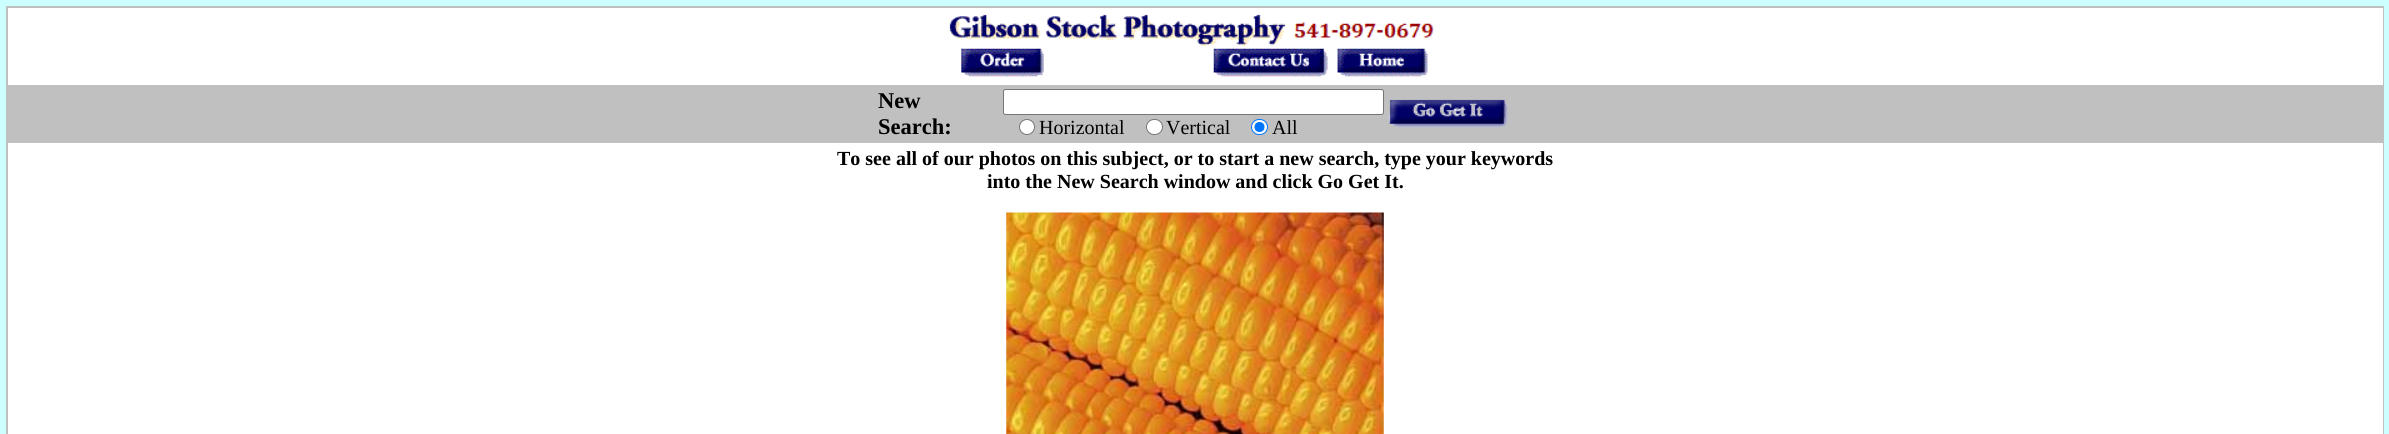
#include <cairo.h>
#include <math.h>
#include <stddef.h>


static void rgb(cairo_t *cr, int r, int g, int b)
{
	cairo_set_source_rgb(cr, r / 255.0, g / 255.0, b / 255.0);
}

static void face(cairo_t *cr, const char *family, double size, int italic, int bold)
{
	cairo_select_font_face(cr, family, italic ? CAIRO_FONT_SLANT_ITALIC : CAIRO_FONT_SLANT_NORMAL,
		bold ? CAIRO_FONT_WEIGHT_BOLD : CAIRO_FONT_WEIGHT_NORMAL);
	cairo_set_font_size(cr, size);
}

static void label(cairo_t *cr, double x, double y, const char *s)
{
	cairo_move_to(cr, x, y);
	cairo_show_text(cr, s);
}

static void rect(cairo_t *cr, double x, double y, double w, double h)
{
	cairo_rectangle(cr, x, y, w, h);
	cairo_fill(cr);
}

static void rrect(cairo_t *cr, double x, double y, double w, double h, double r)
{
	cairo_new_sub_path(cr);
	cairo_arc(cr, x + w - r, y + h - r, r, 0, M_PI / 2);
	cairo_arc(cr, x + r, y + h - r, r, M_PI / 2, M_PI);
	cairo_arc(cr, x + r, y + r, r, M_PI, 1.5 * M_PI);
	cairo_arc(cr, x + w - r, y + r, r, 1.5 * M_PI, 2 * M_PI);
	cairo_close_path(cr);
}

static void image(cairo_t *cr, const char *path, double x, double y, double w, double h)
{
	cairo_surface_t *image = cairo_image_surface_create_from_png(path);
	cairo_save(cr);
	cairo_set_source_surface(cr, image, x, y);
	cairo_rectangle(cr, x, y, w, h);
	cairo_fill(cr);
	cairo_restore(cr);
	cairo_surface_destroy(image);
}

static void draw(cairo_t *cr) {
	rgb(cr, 204, 255, 255);
	cairo_paint(cr);
	rgb(cr, 192, 192, 192);
	rect(cr, 6, 6, 2378, 428);
	rgb(cr, 255, 255, 255);
	rect(cr, 8, 8, 2375, 77);
	image(cr, "image0.png", 949, 14, 485, 63);
	face(cr, "Liberation Serif", 22.5, 0, 1);
	rgb(cr, 0, 0, 0);
	label(cr, 878, 108, "New");
	label(cr, 878, 134, "Search:");
	rgb(cr, 255, 255, 255);
	rrect(cr, 1003.5, 89.5, 380, 25, 2);
	cairo_fill_preserve(cr);
	rgb(cr, 118, 118, 118);
	cairo_set_line_width(cr, 1);
	cairo_stroke(cr);
	rgb(cr, 255, 255, 255);
	cairo_arc(cr, 1027, 127, 7.5, 0, 2 * M_PI);
	cairo_fill_preserve(cr);
	rgb(cr, 118, 118, 118);
	cairo_stroke(cr);
	face(cr, "Liberation Serif", 20, 0, 0);
	rgb(cr, 0, 0, 0);
	label(cr, 1039, 134, "Horizontal");
	rgb(cr, 255, 255, 255);
	rrect(cr, 1146.5, 119.5, 16, 15, 7.5);
	cairo_fill_preserve(cr);
	rgb(cr, 118, 118, 118);
	cairo_stroke(cr);
	rgb(cr, 0, 0, 0);
	label(cr, 1166, 134, "Vertical");
	rgb(cr, 255, 255, 255);
	rrect(cr, 1251.5, 119.5, 16, 15, 7.5);
	cairo_fill_preserve(cr);
	rgb(cr, 0, 117, 255);
	cairo_stroke(cr);
	cairo_arc(cr, 1259.5, 127, 5, 0, 2 * M_PI);
	cairo_fill(cr);
	rgb(cr, 0, 0, 0);
	label(cr, 1272, 134, "All");
	image(cr, "image1.png", 1388, 99, 120, 29);
	rgb(cr, 255, 255, 255);
	rect(cr, 8, 143, 2375, 291);
	face(cr, "Liberation Serif", 20, 0, 1);
	rgb(cr, 0, 0, 0);
	label(cr, 837, 165, "To see all of our photos on this subject, or to start a new search, type your keywords");
	label(cr, 987, 188, "into the New Search window and click Go Get It.");
	image(cr, "image2.png", 1006, 212, 378, 222);
}

int main(void) {
	cairo_surface_t *surface = cairo_image_surface_create(CAIRO_FORMAT_RGB24, 2389, 434);
	cairo_t *cr = cairo_create(surface);
	cairo_font_options_t *options = cairo_font_options_create();
	cairo_font_options_set_hint_metrics(options, CAIRO_HINT_METRICS_OFF);
	cairo_font_options_set_hint_style(options, CAIRO_HINT_STYLE_NONE);
	cairo_set_font_options(cr, options);
	cairo_set_miter_limit(cr, 4);
	draw(cr);
	cairo_surface_write_to_png(surface, "render.png");
	cairo_font_options_destroy(options);
	cairo_destroy(cr);
	cairo_surface_destroy(surface);
	return 0;
}
